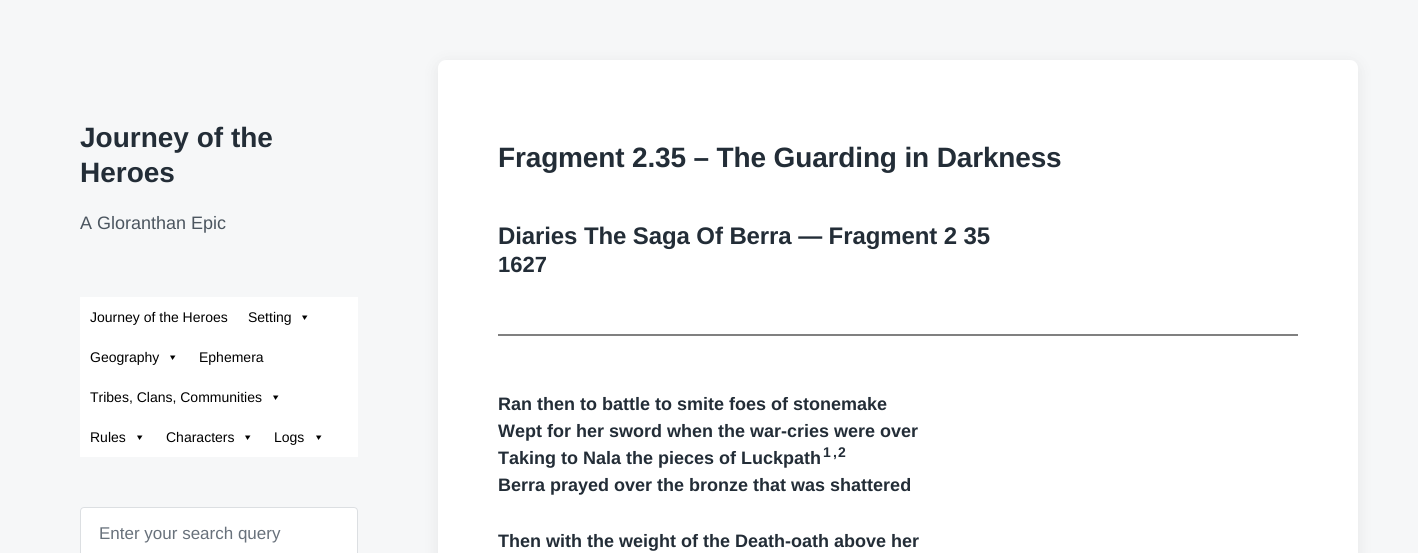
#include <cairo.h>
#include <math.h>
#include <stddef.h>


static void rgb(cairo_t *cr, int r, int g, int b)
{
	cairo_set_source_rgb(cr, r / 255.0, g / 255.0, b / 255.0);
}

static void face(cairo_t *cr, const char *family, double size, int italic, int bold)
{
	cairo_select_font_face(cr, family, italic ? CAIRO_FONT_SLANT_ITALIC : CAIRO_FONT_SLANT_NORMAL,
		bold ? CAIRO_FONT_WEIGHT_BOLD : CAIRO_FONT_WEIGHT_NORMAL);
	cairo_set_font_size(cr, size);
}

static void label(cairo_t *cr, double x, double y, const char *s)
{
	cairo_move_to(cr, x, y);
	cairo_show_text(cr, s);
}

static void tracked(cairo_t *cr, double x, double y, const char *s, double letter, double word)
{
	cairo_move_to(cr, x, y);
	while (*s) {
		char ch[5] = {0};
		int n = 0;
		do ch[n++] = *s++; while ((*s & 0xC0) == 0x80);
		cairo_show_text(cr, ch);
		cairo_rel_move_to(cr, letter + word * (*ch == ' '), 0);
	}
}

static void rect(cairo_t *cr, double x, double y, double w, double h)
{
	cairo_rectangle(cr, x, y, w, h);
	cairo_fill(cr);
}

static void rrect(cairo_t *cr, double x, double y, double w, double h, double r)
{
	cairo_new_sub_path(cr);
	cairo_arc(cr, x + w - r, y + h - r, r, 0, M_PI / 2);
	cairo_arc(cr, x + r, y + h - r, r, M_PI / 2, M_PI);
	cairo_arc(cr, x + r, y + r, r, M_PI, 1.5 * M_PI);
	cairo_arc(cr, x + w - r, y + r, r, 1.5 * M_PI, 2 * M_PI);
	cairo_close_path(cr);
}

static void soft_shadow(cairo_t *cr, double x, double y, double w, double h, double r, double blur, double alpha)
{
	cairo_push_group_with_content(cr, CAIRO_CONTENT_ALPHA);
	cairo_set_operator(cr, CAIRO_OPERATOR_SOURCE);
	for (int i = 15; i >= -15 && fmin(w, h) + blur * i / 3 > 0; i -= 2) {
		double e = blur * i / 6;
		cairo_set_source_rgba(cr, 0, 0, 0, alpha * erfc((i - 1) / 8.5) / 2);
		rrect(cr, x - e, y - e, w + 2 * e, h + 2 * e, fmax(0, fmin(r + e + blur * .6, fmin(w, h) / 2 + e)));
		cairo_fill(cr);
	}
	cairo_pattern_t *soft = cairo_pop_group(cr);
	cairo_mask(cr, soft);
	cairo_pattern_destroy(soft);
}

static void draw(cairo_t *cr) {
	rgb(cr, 246, 247, 248);
	cairo_paint(cr);
	face(cr, "Liberation Sans", 28, 0, 1);
	rgb(cr, 35, 45, 55);
	label(cr, 80, 147, "Journey of the");
	label(cr, 80, 182, "Heroes");
	face(cr, "Liberation Sans", 18, 0, 0);
	rgb(cr, 75, 85, 95);
	label(cr, 80, 229, "A Gloranthan Epic");
	rgb(cr, 255, 255, 255);
	rect(cr, 80, 297, 278, 160);
	face(cr, "Liberation Sans", 14, 0, 0);
	rgb(cr, 0, 0, 0);
	label(cr, 90, 322, "Journey of the Heroes");
	label(cr, 248, 322, "Setting");
	cairo_new_path(cr);
	cairo_move_to(cr, 307.5, 315.5);
	cairo_line_to(cr, 304.5, 320);
	cairo_line_to(cr, 302, 315.5);
	cairo_close_path(cr);
	cairo_fill(cr);
	label(cr, 90, 362, "Geography");
	cairo_new_path(cr);
	cairo_move_to(cr, 175.5, 355.5);
	cairo_line_to(cr, 172.5, 360);
	cairo_line_to(cr, 170, 355.5);
	cairo_close_path(cr);
	cairo_fill(cr);
	label(cr, 199, 362, "Ephemera");
	label(cr, 90, 402, "Tribes, Clans, Communities");
	cairo_new_path(cr);
	cairo_move_to(cr, 278.5, 395.5);
	cairo_line_to(cr, 275.5, 400);
	cairo_line_to(cr, 273, 395.5);
	cairo_close_path(cr);
	cairo_fill(cr);
	label(cr, 90, 442, "Rules");
	cairo_new_path(cr);
	cairo_move_to(cr, 142.5, 435.5);
	cairo_line_to(cr, 139.5, 440);
	cairo_line_to(cr, 137, 435.5);
	cairo_close_path(cr);
	cairo_fill(cr);
	label(cr, 166, 442, "Characters");
	cairo_new_path(cr);
	cairo_move_to(cr, 250.5, 435.5);
	cairo_line_to(cr, 247.5, 440);
	cairo_line_to(cr, 245, 435.5);
	cairo_close_path(cr);
	cairo_fill(cr);
	label(cr, 274, 442, "Logs");
	cairo_new_path(cr);
	cairo_move_to(cr, 321.5, 435.5);
	cairo_line_to(cr, 318.5, 440);
	cairo_line_to(cr, 316, 435.5);
	cairo_close_path(cr);
	cairo_fill(cr);
	rgb(cr, 255, 255, 255);
	cairo_new_path(cr);
	cairo_move_to(cr, 84, 507);
	cairo_line_to(cr, 354, 507);
	cairo_curve_to(cr, 356, 507, 358, 509, 358, 511);
	cairo_line_to(cr, 358, 553);
	cairo_line_to(cr, 80, 553);
	cairo_line_to(cr, 80, 511);
	cairo_curve_to(cr, 80, 509, 82, 507, 84, 507);
	cairo_close_path(cr);
	cairo_fill(cr);
	rrect(cr, 80.5, 507.5, 277, 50, 3.5);
	rgb(cr, 220, 223, 226);
	cairo_set_line_width(cr, 1);
	cairo_stroke(cr);
	face(cr, "Liberation Sans", 17, 0, 0);
	rgb(cr, 104, 113, 123);
	label(cr, 99, 539, "Enter your search query");
	rgb(cr, 5, 10, 15);
	soft_shadow(cr, 438, 63, 920, 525, 8, 9, 0.07);
	rgb(cr, 255, 255, 255);
	rrect(cr, 438, 60, 920, 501, 8);
	cairo_fill(cr);
	face(cr, "Liberation Sans", 28, 0, 1);
	rgb(cr, 35, 45, 55);
	tracked(cr, 498, 167, "Fragment 2.35 – The Guarding in Darkness", -0.15, 0);
	face(cr, "Liberation Sans", 24, 0, 1);
	tracked(cr, 498, 244, "Diaries The Saga Of Berra — Fragment 2 35", -0.1, 0);
	face(cr, "Liberation Sans", 22, 0, 1);
	label(cr, 498, 272, "1627");
	rgb(cr, 128, 128, 128);
	rect(cr, 498, 334, 800, 2);
	face(cr, "Liberation Sans", 18, 0, 1);
	rgb(cr, 35, 45, 55);
	label(cr, 498, 410, "Ran then to battle to smite foes of stonemake");
	label(cr, 498, 437, "Wept for her sword when the war-cries were over");
	label(cr, 498, 464, "Taking to Nala the pieces of Luckpath");
	face(cr, "Liberation Sans", 14, 0, 1);
	label(cr, 823, 457, "1");
	label(cr, 833, 457, ",");
	label(cr, 838, 457, "2");
	face(cr, "Liberation Sans", 18, 0, 1);
	label(cr, 498, 491, "Berra prayed over the bronze that was shattered");
	label(cr, 498, 547, "Then with the weight of the Death-oath above her");
}

int main(void) {
	cairo_surface_t *surface = cairo_image_surface_create(CAIRO_FORMAT_RGB24, 1418, 553);
	cairo_t *cr = cairo_create(surface);
	cairo_font_options_t *options = cairo_font_options_create();
	cairo_font_options_set_hint_metrics(options, CAIRO_HINT_METRICS_OFF);
	cairo_font_options_set_hint_style(options, CAIRO_HINT_STYLE_NONE);
	cairo_set_font_options(cr, options);
	cairo_set_miter_limit(cr, 4);
	draw(cr);
	cairo_surface_write_to_png(surface, "render.png");
	cairo_font_options_destroy(options);
	cairo_destroy(cr);
	cairo_surface_destroy(surface);
	return 0;
}
